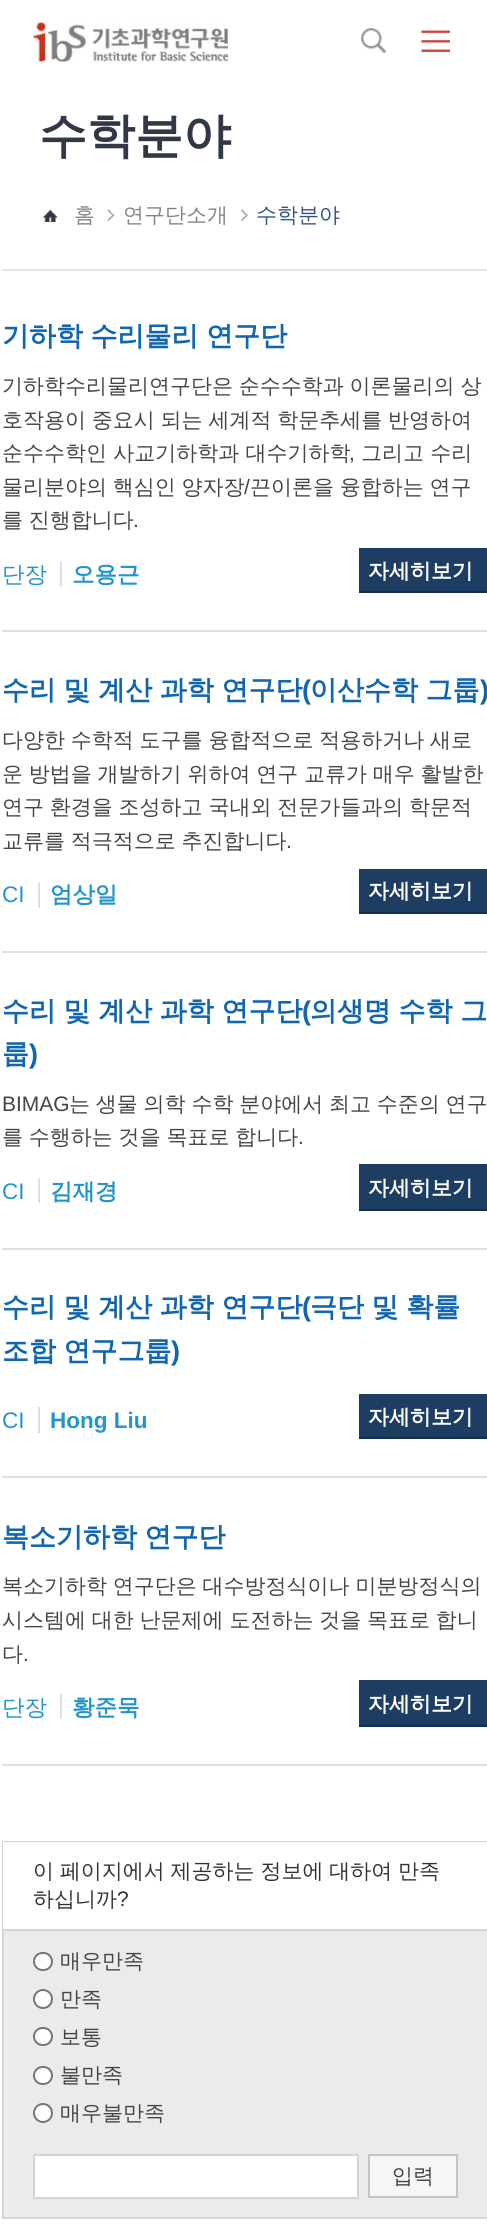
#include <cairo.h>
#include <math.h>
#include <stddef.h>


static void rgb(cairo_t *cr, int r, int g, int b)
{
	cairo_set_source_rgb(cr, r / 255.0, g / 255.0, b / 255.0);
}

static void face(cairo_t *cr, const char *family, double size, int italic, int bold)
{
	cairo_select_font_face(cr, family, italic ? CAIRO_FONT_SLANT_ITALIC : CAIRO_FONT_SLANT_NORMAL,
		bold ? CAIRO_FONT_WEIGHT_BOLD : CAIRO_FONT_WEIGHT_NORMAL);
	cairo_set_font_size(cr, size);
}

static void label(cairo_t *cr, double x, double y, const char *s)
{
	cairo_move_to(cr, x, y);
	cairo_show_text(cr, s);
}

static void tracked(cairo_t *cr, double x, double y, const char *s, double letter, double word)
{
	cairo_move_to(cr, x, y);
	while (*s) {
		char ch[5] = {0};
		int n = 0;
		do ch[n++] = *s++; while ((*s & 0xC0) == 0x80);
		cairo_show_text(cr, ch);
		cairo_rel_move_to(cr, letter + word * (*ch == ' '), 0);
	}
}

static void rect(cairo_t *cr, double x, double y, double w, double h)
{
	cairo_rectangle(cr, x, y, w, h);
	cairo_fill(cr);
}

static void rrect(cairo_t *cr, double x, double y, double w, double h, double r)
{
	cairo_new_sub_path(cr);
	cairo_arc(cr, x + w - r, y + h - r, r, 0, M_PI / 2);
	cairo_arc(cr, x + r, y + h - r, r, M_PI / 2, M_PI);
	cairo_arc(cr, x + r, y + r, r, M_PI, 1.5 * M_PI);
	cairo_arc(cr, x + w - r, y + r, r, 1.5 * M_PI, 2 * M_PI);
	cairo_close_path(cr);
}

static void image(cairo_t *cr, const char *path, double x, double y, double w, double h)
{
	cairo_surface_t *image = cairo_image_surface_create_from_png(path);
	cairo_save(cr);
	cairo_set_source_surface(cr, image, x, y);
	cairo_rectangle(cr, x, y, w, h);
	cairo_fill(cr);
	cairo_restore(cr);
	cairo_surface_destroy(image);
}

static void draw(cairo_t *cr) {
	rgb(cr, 255, 255, 255);
	cairo_paint(cr);
	image(cr, "image0.png", 33, 22, 195, 40);
	image(cr, "image1.png", 361, 28, 25, 25);
	image(cr, "image2.png", 421, 30, 29, 23);
	rgb(cr, 228, 228, 228);
	rect(cr, 2, 269, 485, 2);
	face(cr, "WenQuanYi Zen Hei", 48, 0, 1);
	rgb(cr, 49, 55, 68);
	label(cr, 39, 152, "수학분야");
	image(cr, "image3.png", 43, 210, 14, 12);
	face(cr, "WenQuanYi Zen Hei Medium", 21, 0, 0);
	rgb(cr, 132, 132, 134);
	label(cr, 74, 222, "홈");
	image(cr, "image4.png", 108, 210, 6, 11);
	label(cr, 123, 222, "연구단소개");
	image(cr, "image5.png", 241, 210, 7, 11);
	rgb(cr, 53, 80, 132);
	label(cr, 256, 222, "수학분야");
	rgb(cr, 224, 224, 224);
	rect(cr, 2, 630, 485, 2);
	face(cr, "WenQuanYi Zen Hei", 27, 0, 1);
	rgb(cr, 16, 102, 175);
	tracked(cr, 2, 345, "기하학 수리물리 연구단", 0, -0.5);
	face(cr, "WenQuanYi Zen Hei Medium", 21, 0, 0);
	rgb(cr, 68, 68, 68);
	tracked(cr, 2, 393, "기하학수리물리연구단은 순수수학과 이론물리의 상", 0, -0.5);
	tracked(cr, 2, 427, "호작용이 중요시 되는 세계적 학문추세를 반영하여", 0, -0.5);
	label(cr, 2, 460, "순수수학인 사교기하학과 대수기하학");
	face(cr, "Liberation Sans", 21, 0, 0);
	label(cr, 349, 460, ",");
	face(cr, "WenQuanYi Zen Hei Medium", 21, 0, 0);
	label(cr, 361, 460, "그리고 수리");
	tracked(cr, 2, 494, "물리분야의 핵심인 양자장", 0, -0.5);
	face(cr, "Liberation Sans", 21, 0, 0);
	label(cr, 244, 494, "/");
	face(cr, "WenQuanYi Zen Hei Medium", 21, 0, 0);
	tracked(cr, 250, 494, "끈이론을 융합하는 연구", 0, -0.5);
	tracked(cr, 2, 527, "를 진행합니다", 0, -0.5);
	face(cr, "Liberation Sans", 21, 0, 0);
	label(cr, 133, 527, ".");
	face(cr, "WenQuanYi Zen Hei Medium", 22.5, 0, 0);
	rgb(cr, 35, 149, 203);
	label(cr, 2, 582, "단장");
	face(cr, "WenQuanYi Zen Hei", 22.5, 0, 1);
	label(cr, 72, 582, "오용근");
	rgb(cr, 224, 224, 224);
	rect(cr, 60, 561, 2, 26);
	rgb(cr, 30, 61, 98);
	rect(cr, 359, 548, 128, 43);
	rgb(cr, 22, 45, 73);
	rect(cr, 359, 591, 128, 2);
	face(cr, "WenQuanYi Zen Hei", 21, 0, 1);
	rgb(cr, 255, 255, 255);
	label(cr, 368, 578, "자세히보기");
	rgb(cr, 224, 224, 224);
	rect(cr, 2, 951, 485, 2);
	face(cr, "WenQuanYi Zen Hei", 27, 0, 1);
	rgb(cr, 16, 102, 175);
	tracked(cr, 2, 699, "수리 및 계산 과학 연구단", 0, -0.5);
	face(cr, "Liberation Sans", 27, 0, 1);
	label(cr, 302, 699, "(");
	face(cr, "WenQuanYi Zen Hei", 27, 0, 1);
	tracked(cr, 310, 699, "이산수학 그룹", 0, -0.5);
	face(cr, "Liberation Sans", 27, 0, 1);
	label(cr, 480, 699, ")");
	face(cr, "WenQuanYi Zen Hei Medium", 21, 0, 0);
	rgb(cr, 68, 68, 68);
	tracked(cr, 2, 747, "다양한 수학적 도구를 융합적으로 적용하거나 새로", 0, -0.5);
	tracked(cr, 2, 781, "운 방법을 개발하기 위하여 연구 교류가 매우 활발한", 0, -0.5);
	tracked(cr, 2, 814, "연구 환경을 조성하고 국내외 전문가들과의 학문적", 0, -0.5);
	tracked(cr, 2, 848, "교류를 적극적으로 추진합니다", 0, -0.5);
	face(cr, "Liberation Sans", 21, 0, 0);
	label(cr, 286, 848, ".");
	face(cr, "Liberation Sans", 22.5, 0, 0);
	rgb(cr, 35, 149, 203);
	label(cr, 2, 902, "CI");
	face(cr, "WenQuanYi Zen Hei", 22.5, 0, 1);
	label(cr, 50, 902, "엄상일");
	rgb(cr, 224, 224, 224);
	rect(cr, 38, 882, 2, 26);
	rgb(cr, 30, 61, 98);
	rect(cr, 359, 869, 128, 43);
	rgb(cr, 22, 45, 73);
	rect(cr, 359, 912, 128, 2);
	face(cr, "WenQuanYi Zen Hei", 21, 0, 1);
	rgb(cr, 255, 255, 255);
	label(cr, 368, 898, "자세히보기");
	rgb(cr, 224, 224, 224);
	rect(cr, 2, 1248, 485, 2);
	face(cr, "WenQuanYi Zen Hei", 27, 0, 1);
	rgb(cr, 16, 102, 175);
	tracked(cr, 2, 1020, "수리 및 계산 과학 연구단", 0, -0.5);
	face(cr, "Liberation Sans", 27, 0, 1);
	label(cr, 302, 1020, "(");
	face(cr, "WenQuanYi Zen Hei", 27, 0, 1);
	tracked(cr, 310, 1020, "의생명 수학 그", 0, -0.5);
	label(cr, 2, 1063, "룹");
	face(cr, "Liberation Sans", 27, 0, 1);
	label(cr, 29, 1063, ")");
	face(cr, "Liberation Sans", 21, 0, 0);
	rgb(cr, 68, 68, 68);
	label(cr, 2, 1111, "BIMAG");
	face(cr, "WenQuanYi Zen Hei Medium", 21, 0, 0);
	tracked(cr, 69, 1111, "는 생물 의학 수학 분야에서 최고 수준의 연구", 0, -0.5);
	tracked(cr, 2, 1144, "를 수행하는 것을 목표로 합니다", 0, -0.5);
	face(cr, "Liberation Sans", 21, 0, 0);
	label(cr, 298, 1144, ".");
	face(cr, "Liberation Sans", 22.5, 0, 0);
	rgb(cr, 35, 149, 203);
	label(cr, 2, 1199, "CI");
	face(cr, "WenQuanYi Zen Hei", 22.5, 0, 1);
	label(cr, 50, 1199, "김재경");
	rgb(cr, 224, 224, 224);
	rect(cr, 38, 1178, 2, 25);
	rgb(cr, 30, 61, 98);
	rect(cr, 359, 1164, 128, 45);
	rgb(cr, 22, 45, 73);
	rect(cr, 359, 1209, 128, 2);
	face(cr, "WenQuanYi Zen Hei", 21, 0, 1);
	rgb(cr, 255, 255, 255);
	label(cr, 368, 1195, "자세히보기");
	rgb(cr, 224, 224, 224);
	rect(cr, 2, 1476, 485, 2);
	face(cr, "WenQuanYi Zen Hei", 27, 0, 1);
	rgb(cr, 16, 102, 175);
	tracked(cr, 2, 1316, "수리 및 계산 과학 연구단", 0, -0.5);
	face(cr, "Liberation Sans", 27, 0, 1);
	label(cr, 302, 1316, "(");
	face(cr, "WenQuanYi Zen Hei", 27, 0, 1);
	tracked(cr, 310, 1316, "극단 및 확률", 0, -0.5);
	tracked(cr, 2, 1360, "조합 연구그룹", 0, -0.5);
	face(cr, "Liberation Sans", 27, 0, 1);
	label(cr, 171, 1360, ")");
	face(cr, "Liberation Sans", 22.5, 0, 0);
	rgb(cr, 35, 149, 203);
	label(cr, 2, 1428, "CI");
	face(cr, "Liberation Sans", 22.5, 0, 1);
	label(cr, 50, 1428, "Hong Liu");
	rgb(cr, 224, 224, 224);
	rect(cr, 38, 1407, 2, 26);
	rgb(cr, 30, 61, 98);
	rect(cr, 359, 1394, 128, 43);
	rgb(cr, 22, 45, 73);
	rect(cr, 359, 1437, 128, 2);
	face(cr, "WenQuanYi Zen Hei", 21, 0, 1);
	rgb(cr, 255, 255, 255);
	label(cr, 368, 1424, "자세히보기");
	rgb(cr, 224, 224, 224);
	rect(cr, 2, 1764, 485, 2);
	face(cr, "WenQuanYi Zen Hei", 27, 0, 1);
	rgb(cr, 16, 102, 175);
	tracked(cr, 2, 1546, "복소기하학 연구단", 0, -0.5);
	face(cr, "WenQuanYi Zen Hei Medium", 21, 0, 0);
	rgb(cr, 68, 68, 68);
	tracked(cr, 2, 1593, "복소기하학 연구단은 대수방정식이나 미분방정식의", 0, -0.5);
	tracked(cr, 2, 1627, "시스템에 대한 난문제에 도전하는 것을 목표로 합니", 0, -0.5);
	label(cr, 2, 1661, "다");
	face(cr, "Liberation Sans", 21, 0, 0);
	label(cr, 23, 1661, ".");
	face(cr, "WenQuanYi Zen Hei Medium", 22.5, 0, 0);
	rgb(cr, 35, 149, 203);
	label(cr, 2, 1715, "단장");
	face(cr, "WenQuanYi Zen Hei", 22.5, 0, 1);
	label(cr, 72, 1715, "황준묵");
	rgb(cr, 224, 224, 224);
	rect(cr, 60, 1694, 2, 25);
	rgb(cr, 30, 61, 98);
	rect(cr, 359, 1680, 128, 45);
	rgb(cr, 22, 45, 73);
	rect(cr, 359, 1725, 128, 2);
	face(cr, "WenQuanYi Zen Hei", 21, 0, 1);
	rgb(cr, 255, 255, 255);
	label(cr, 368, 1711, "자세히보기");
	rgb(cr, 235, 235, 235);
	rect(cr, 4, 1931, 483, 286);
	cairo_rectangle(cr, 3, 1842, 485, 376);
	rgb(cr, 214, 214, 214);
	cairo_stroke(cr);
	rgb(cr, 255, 255, 255);
	rect(cr, 3, 1842, 484, 87);
	face(cr, "WenQuanYi Zen Hei Medium", 21, 0, 0);
	rgb(cr, 50, 50, 50);
	tracked(cr, 33, 1878, "이 페이지에서 제공하는 정보에 대하여 만족", 0, -0.5);
	label(cr, 33, 1906, "하십니까");
	face(cr, "Liberation Sans", 21, 0, 0);
	label(cr, 117, 1906, "?");
	rgb(cr, 214, 214, 214);
	rect(cr, 3, 1929, 484, 2);
	rgb(cr, 255, 255, 255);
	rrect(cr, 34, 1953, 18, 17, 8.5);
	cairo_fill_preserve(cr);
	rgb(cr, 118, 118, 118);
	cairo_stroke(cr);
	face(cr, "WenQuanYi Zen Hei Medium", 21, 0, 0);
	rgb(cr, 68, 68, 68);
	label(cr, 60, 1968, "매우만족");
	rgb(cr, 255, 255, 255);
	cairo_new_path(cr);
	cairo_arc(cr, 43, 1999, 9, 0, 2 * M_PI);
	cairo_fill_preserve(cr);
	rgb(cr, 118, 118, 118);
	cairo_stroke(cr);
	rgb(cr, 68, 68, 68);
	label(cr, 60, 2006, "만족");
	rgb(cr, 255, 255, 255);
	rrect(cr, 34, 2028, 18, 17, 8.5);
	cairo_fill_preserve(cr);
	rgb(cr, 118, 118, 118);
	cairo_stroke(cr);
	rgb(cr, 68, 68, 68);
	label(cr, 60, 2044, "보통");
	rgb(cr, 255, 255, 255);
	rrect(cr, 34, 2067, 18, 17, 8.5);
	cairo_fill_preserve(cr);
	rgb(cr, 118, 118, 118);
	cairo_stroke(cr);
	rgb(cr, 68, 68, 68);
	label(cr, 60, 2082, "불만족");
	rgb(cr, 255, 255, 255);
	cairo_new_path(cr);
	cairo_arc(cr, 43, 2113, 9, 0, 2 * M_PI);
	cairo_fill_preserve(cr);
	rgb(cr, 118, 118, 118);
	cairo_stroke(cr);
	rgb(cr, 68, 68, 68);
	label(cr, 60, 2120, "매우불만족");
	rgb(cr, 255, 255, 255);
	cairo_rectangle(cr, 34, 2155, 324, 43);
	cairo_fill_preserve(cr);
	rgb(cr, 211, 211, 211);
	cairo_stroke(cr);
	rgb(cr, 246, 246, 246);
	cairo_rectangle(cr, 369, 2155, 88, 42);
	cairo_fill_preserve(cr);
	rgb(cr, 196, 196, 196);
	cairo_stroke(cr);
	rgb(cr, 68, 68, 68);
	label(cr, 392, 2183, "입력");
}

int main(void) {
	cairo_surface_t *surface = cairo_image_surface_create(CAIRO_FORMAT_RGB24, 487, 2234);
	cairo_t *cr = cairo_create(surface);
	cairo_font_options_t *options = cairo_font_options_create();
	cairo_font_options_set_hint_metrics(options, CAIRO_HINT_METRICS_OFF);
	cairo_font_options_set_hint_style(options, CAIRO_HINT_STYLE_NONE);
	cairo_set_font_options(cr, options);
	cairo_set_miter_limit(cr, 4);
	draw(cr);
	cairo_surface_write_to_png(surface, "render.png");
	cairo_font_options_destroy(options);
	cairo_destroy(cr);
	cairo_surface_destroy(surface);
	return 0;
}
